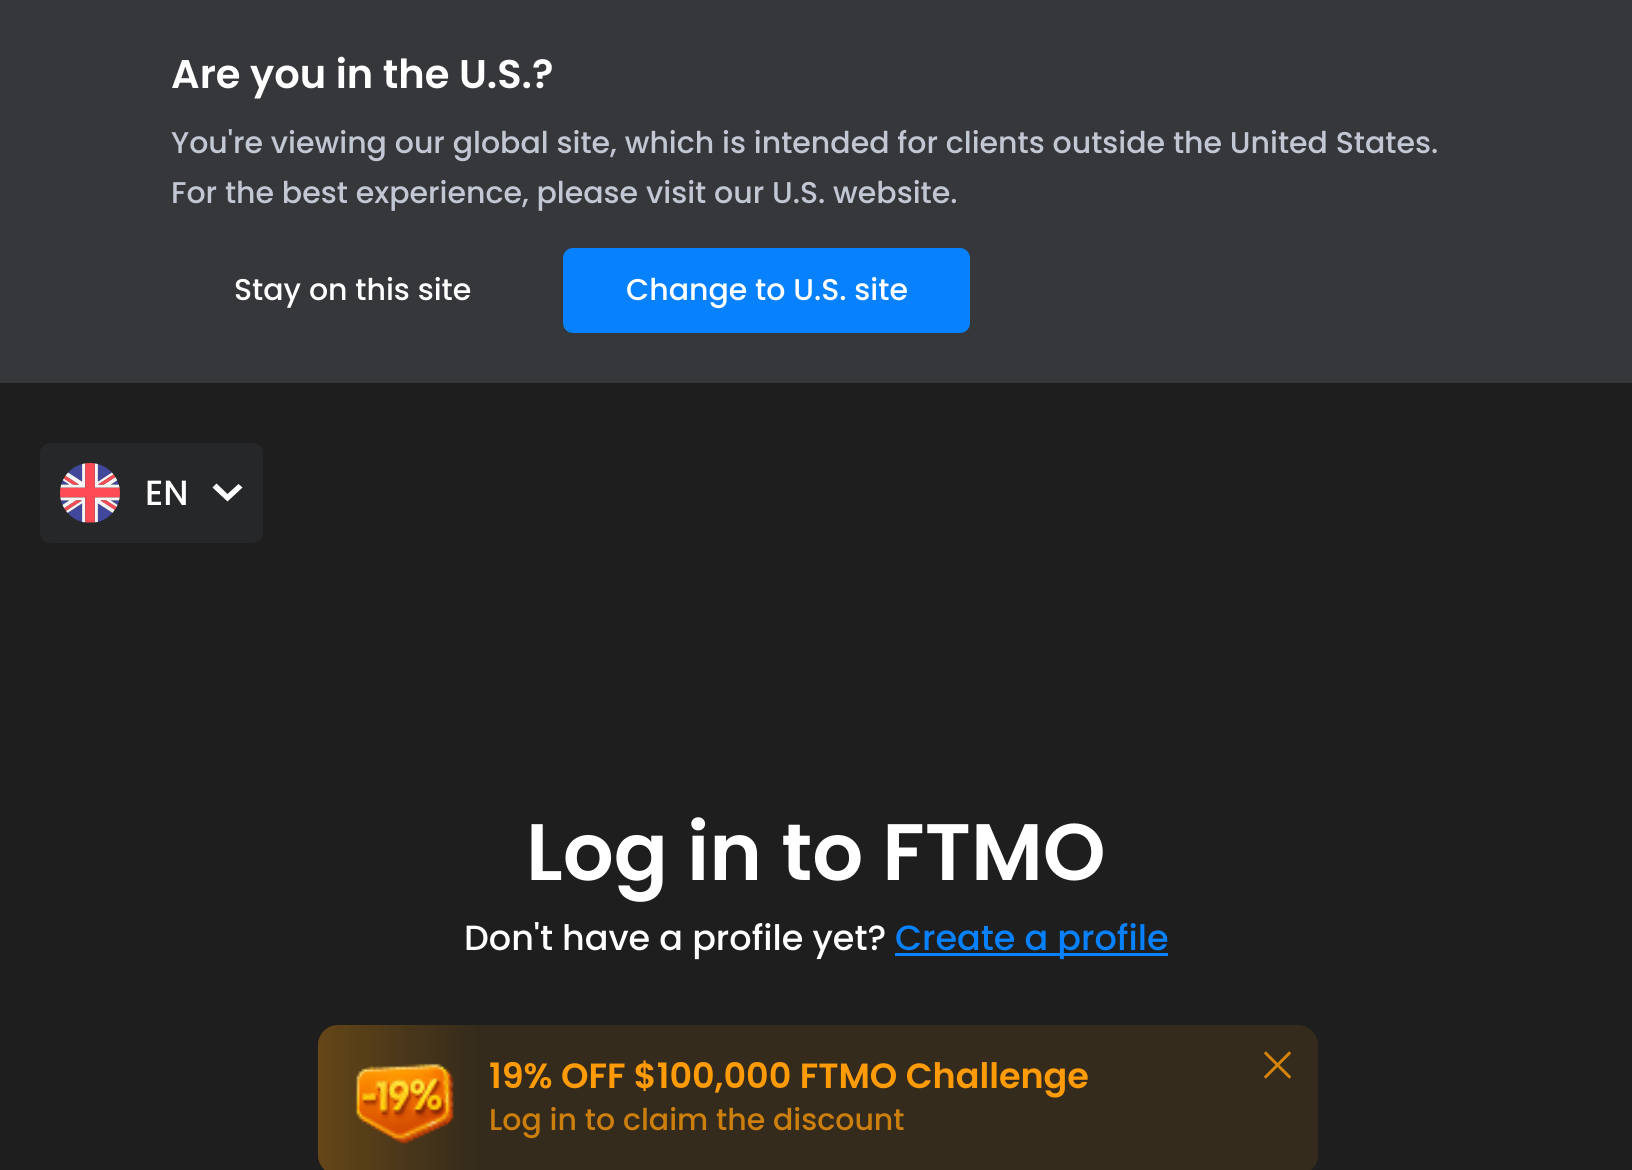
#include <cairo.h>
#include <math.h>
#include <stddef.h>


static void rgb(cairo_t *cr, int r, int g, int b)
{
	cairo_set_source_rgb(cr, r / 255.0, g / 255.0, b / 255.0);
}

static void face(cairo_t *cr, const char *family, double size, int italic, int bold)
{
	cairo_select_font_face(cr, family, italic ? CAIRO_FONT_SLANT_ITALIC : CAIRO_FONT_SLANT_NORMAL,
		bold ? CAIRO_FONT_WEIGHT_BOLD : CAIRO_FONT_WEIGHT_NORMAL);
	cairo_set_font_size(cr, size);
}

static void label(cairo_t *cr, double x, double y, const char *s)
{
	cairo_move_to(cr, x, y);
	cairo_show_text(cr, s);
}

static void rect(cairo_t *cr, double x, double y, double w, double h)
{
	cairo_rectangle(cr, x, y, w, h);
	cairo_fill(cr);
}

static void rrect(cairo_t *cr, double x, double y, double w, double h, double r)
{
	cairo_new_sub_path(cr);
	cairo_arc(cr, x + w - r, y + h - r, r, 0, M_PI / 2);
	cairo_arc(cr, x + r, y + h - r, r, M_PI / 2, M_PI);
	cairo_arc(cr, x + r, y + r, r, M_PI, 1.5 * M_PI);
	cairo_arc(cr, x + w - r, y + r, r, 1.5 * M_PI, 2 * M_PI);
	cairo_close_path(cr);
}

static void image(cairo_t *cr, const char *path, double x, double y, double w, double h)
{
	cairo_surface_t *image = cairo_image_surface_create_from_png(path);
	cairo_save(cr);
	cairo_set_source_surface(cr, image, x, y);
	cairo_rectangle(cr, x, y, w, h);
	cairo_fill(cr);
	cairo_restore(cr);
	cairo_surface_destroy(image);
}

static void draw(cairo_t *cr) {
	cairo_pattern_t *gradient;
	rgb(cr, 30, 30, 30);
	cairo_paint(cr);
	rgb(cr, 54, 55, 59);
	rect(cr, 0, 0, 1632, 383);
	face(cr, "Poppins SemiBold", 40, 0, 0);
	rgb(cr, 255, 255, 255);
	label(cr, 171, 88, "Are you in the U.S.?");
	face(cr, "Poppins Medium", 30, 0, 0);
	rgb(cr, 193, 199, 211);
	label(cr, 171, 153, "You're viewing our global site, which is intended for clients outside the United States.");
	label(cr, 171, 203, "For the best experience, please visit our U.S. website.");
	rgb(cr, 255, 255, 255);
	label(cr, 234, 300, "Stay on this site");
	rgb(cr, 7, 129, 254);
	rrect(cr, 564.5, 249.5, 404, 82, 8.5);
	cairo_fill_preserve(cr);
	cairo_set_line_width(cr, 3);
	cairo_stroke(cr);
	rgb(cr, 255, 255, 255);
	label(cr, 626, 300, "Change to U.S. site");
	rgb(cr, 38, 39, 41);
	rrect(cr, 40, 443, 223, 100, 10);
	cairo_fill(cr);
	image(cr, "image0.png", 60, 463, 60, 60);
	face(cr, "Poppins Medium", 35, 0, 0);
	rgb(cr, 255, 255, 255);
	label(cr, 145, 505, "EN");
	cairo_set_fill_rule(cr, CAIRO_FILL_RULE_EVEN_ODD);
	cairo_new_path(cr);
	cairo_move_to(cr, 227.5, 494);
	cairo_line_to(cr, 216.5, 483.5);
	cairo_line_to(cr, 212.5, 487.5);
	cairo_line_to(cr, 227.5, 501.5);
	cairo_line_to(cr, 242.5, 487.5);
	cairo_line_to(cr, 238.5, 484);
	cairo_close_path(cr);
	cairo_fill(cr);
	face(cr, "Poppins SemiBold", 80, 0, 0);
	label(cr, 526, 880, "Log in to FTMO");
	face(cr, "Poppins Medium", 35, 0, 0);
	label(cr, 464, 950, "Don't have a profile yet?");
	rgb(cr, 7, 129, 254);
	rect(cr, 895, 953, 273, 3);
	label(cr, 895, 950, "Create a profile");
	rgb(cr, 52, 43, 28);
	rrect(cr, 318, 1025, 1000, 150, 20);
	cairo_fill(cr);
	image(cr, "image2.png", 355, 1063, 99, 81);
	gradient = cairo_pattern_create_linear(318, 1100, 478, 1100);
	cairo_pattern_add_color_stop_rgba(gradient, 0, 0.996, 0.608, 0.027, 0.24);
	cairo_pattern_add_color_stop_rgba(gradient, 1, 0.996, 0.608, 0.027, 0);
	cairo_set_source(cr, gradient);
	cairo_pattern_destroy(gradient);
	cairo_new_path(cr);
	cairo_move_to(cr, 338, 1025);
	cairo_line_to(cr, 478, 1025);
	cairo_line_to(cr, 478, 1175);
	cairo_line_to(cr, 338, 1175);
	cairo_curve_to(cr, 327, 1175, 318, 1166, 318, 1155);
	cairo_line_to(cr, 318, 1045);
	cairo_curve_to(cr, 318, 1034, 327, 1025, 338, 1025);
	cairo_close_path(cr);
	cairo_fill(cr);
	face(cr, "Poppins SemiBold", 35, 0, 0);
	rgb(cr, 254, 155, 7);
	label(cr, 489, 1088, "19% OFF $100,000 FTMO Challenge");
	face(cr, "Poppins Medium", 30, 0, 0);
	rgb(cr, 204, 127, 12);
	label(cr, 489, 1130, "Log in to claim the discount");
	image(cr, "image1.png", 1263, 1051, 29, 28);
}

int main(void) {
	cairo_surface_t *surface = cairo_image_surface_create(CAIRO_FORMAT_RGB24, 1632, 1170);
	cairo_t *cr = cairo_create(surface);
	cairo_font_options_t *options = cairo_font_options_create();
	cairo_font_options_set_hint_metrics(options, CAIRO_HINT_METRICS_OFF);
	cairo_font_options_set_hint_style(options, CAIRO_HINT_STYLE_NONE);
	cairo_set_font_options(cr, options);
	cairo_set_miter_limit(cr, 4);
	draw(cr);
	cairo_surface_write_to_png(surface, "render.png");
	cairo_font_options_destroy(options);
	cairo_destroy(cr);
	cairo_surface_destroy(surface);
	return 0;
}
